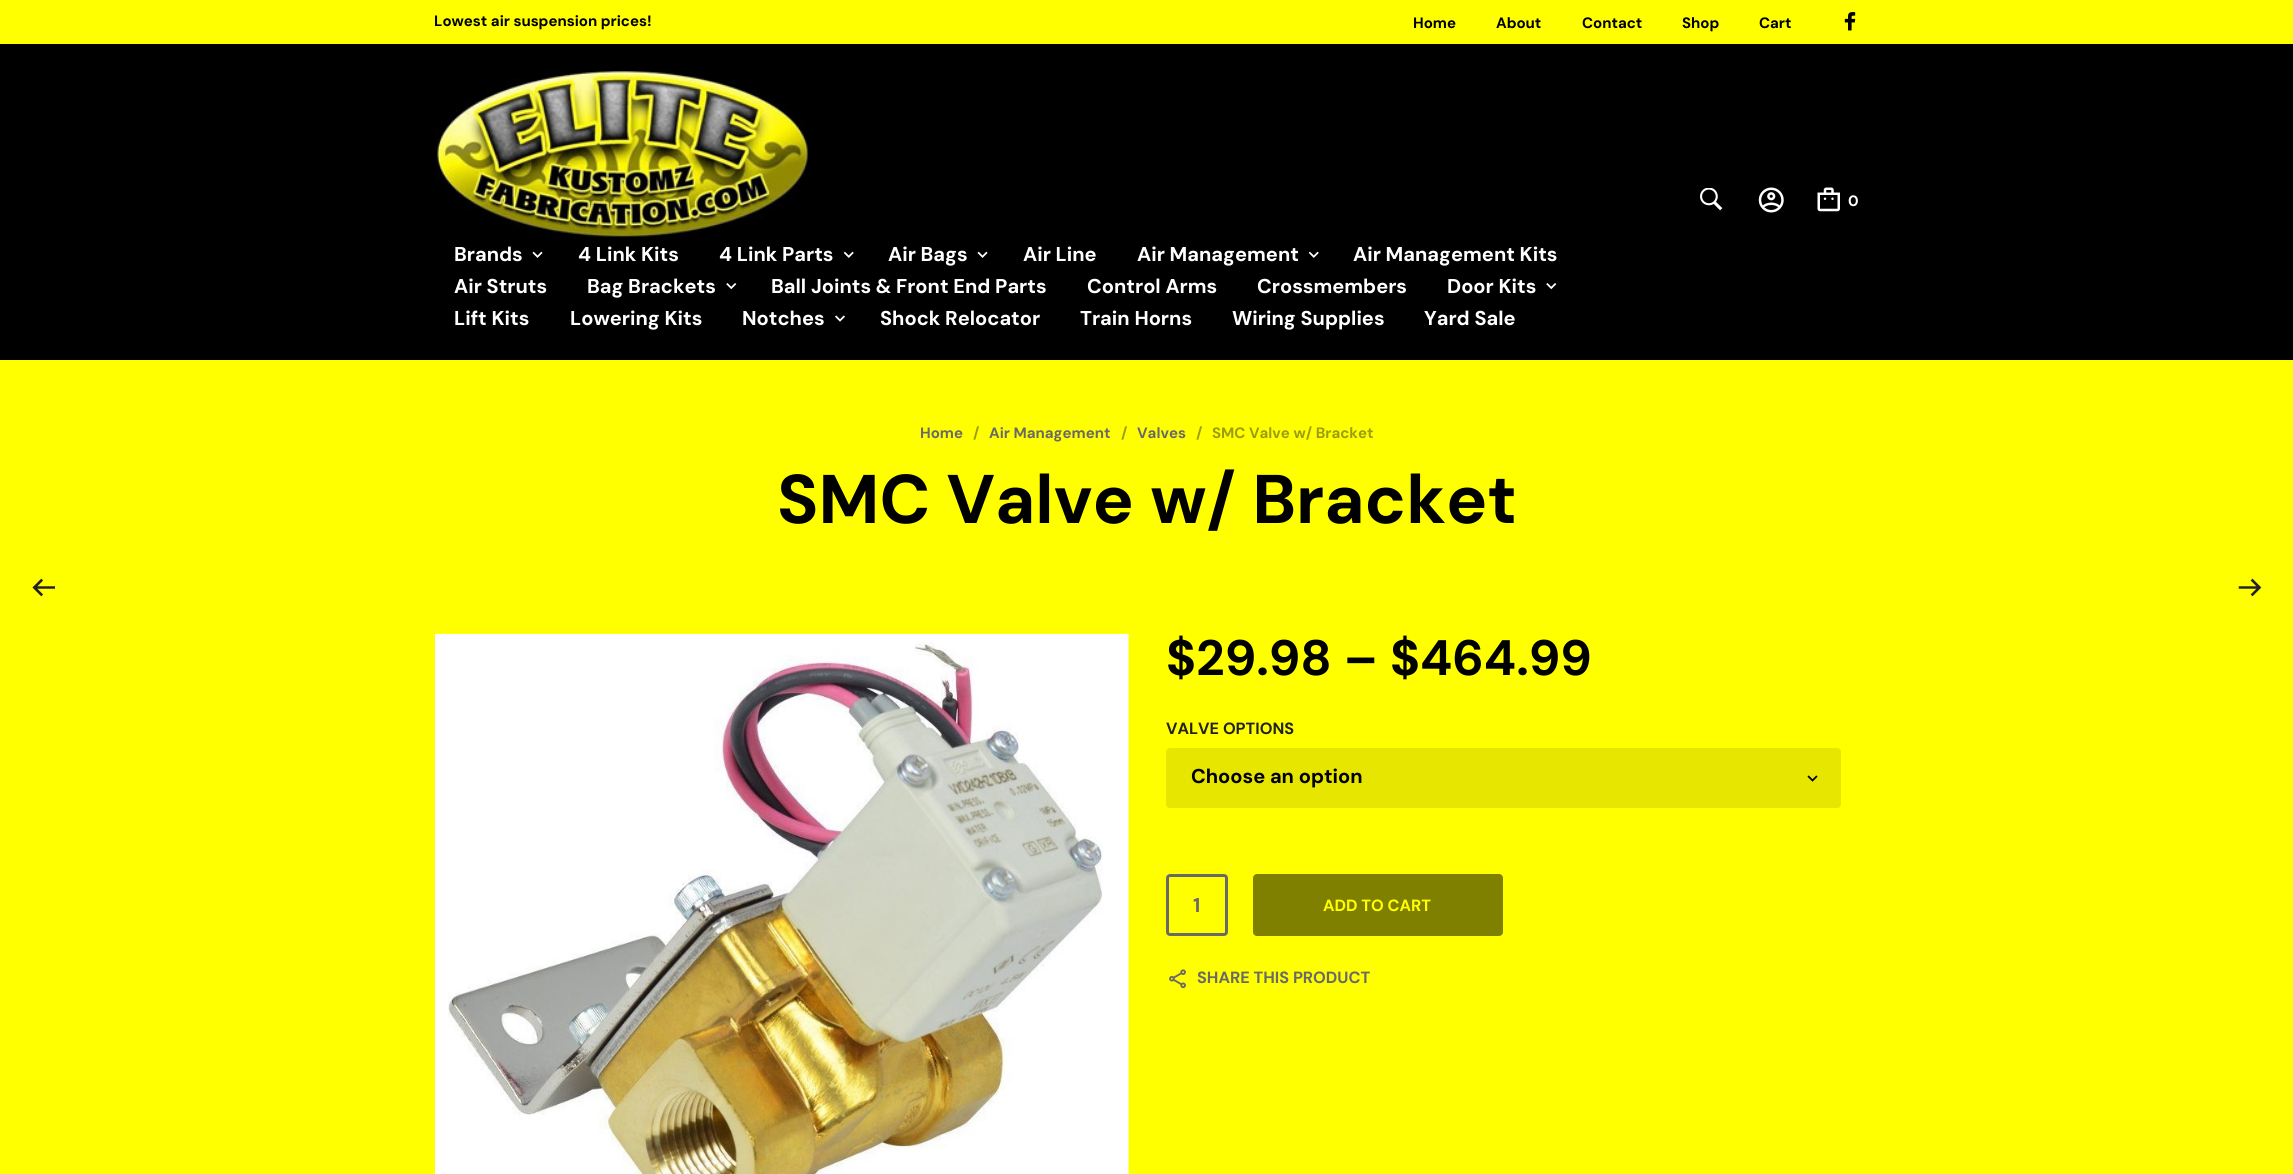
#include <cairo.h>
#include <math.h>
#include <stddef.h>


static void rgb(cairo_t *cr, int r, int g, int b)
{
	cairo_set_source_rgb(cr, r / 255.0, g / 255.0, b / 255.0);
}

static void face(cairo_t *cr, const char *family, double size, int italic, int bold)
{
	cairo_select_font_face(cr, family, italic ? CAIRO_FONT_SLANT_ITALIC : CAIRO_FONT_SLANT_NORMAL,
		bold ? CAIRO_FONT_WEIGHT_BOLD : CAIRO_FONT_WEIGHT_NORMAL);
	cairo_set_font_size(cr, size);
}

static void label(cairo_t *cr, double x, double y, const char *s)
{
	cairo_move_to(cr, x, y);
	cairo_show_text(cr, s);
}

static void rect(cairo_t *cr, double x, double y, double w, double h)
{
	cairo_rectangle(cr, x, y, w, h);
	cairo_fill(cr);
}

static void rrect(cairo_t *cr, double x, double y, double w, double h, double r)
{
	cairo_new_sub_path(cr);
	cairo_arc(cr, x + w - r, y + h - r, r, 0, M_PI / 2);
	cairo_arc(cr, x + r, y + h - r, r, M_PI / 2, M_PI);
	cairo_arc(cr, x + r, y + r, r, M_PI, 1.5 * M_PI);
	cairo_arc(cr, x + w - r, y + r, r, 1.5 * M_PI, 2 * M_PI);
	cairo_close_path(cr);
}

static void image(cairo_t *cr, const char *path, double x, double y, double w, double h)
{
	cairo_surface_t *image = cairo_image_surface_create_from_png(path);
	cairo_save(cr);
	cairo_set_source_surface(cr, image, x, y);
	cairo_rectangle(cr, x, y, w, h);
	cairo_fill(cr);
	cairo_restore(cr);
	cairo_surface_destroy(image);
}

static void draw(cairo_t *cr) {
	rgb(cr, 255, 255, 0);
	cairo_paint(cr);
	face(cr, "DM Sans", 15, 0, 1);
	rgb(cr, 0, 0, 0);
	label(cr, 434, 26, "Lowest air suspension prices!");
	label(cr, 1413, 28, "Home");
	label(cr, 1496, 28, "About");
	label(cr, 1582, 28, "Contact");
	label(cr, 1682, 28, "Shop");
	label(cr, 1759, 28, "Cart");
	image(cr, "image0.png", 1844, 12, 12, 19);
	rect(cr, 0, 44, 2293, 316);
	image(cr, "image1.png", 435, 69, 375, 170);
	image(cr, "image2.png", 1700, 188, 23, 23);
	image(cr, "image3.png", 1758, 187, 26, 26);
	image(cr, "image4.png", 1817, 187, 23, 25);
	rgb(cr, 255, 255, 255);
	label(cr, 1848, 206, "0");
	face(cr, "DM Sans", 20, 0, 1);
	label(cr, 454, 261, "Brands");
	image(cr, "image5.png", 532, 251, 11, 7);
	label(cr, 578, 261, "4 Link Kits");
	label(cr, 719, 261, "4 Link Parts");
	image(cr, "image6.png", 843, 251, 11, 7);
	label(cr, 888, 261, "Air Bags");
	image(cr, "image5.png", 977, 251, 11, 7);
	label(cr, 1023, 261, "Air Line");
	label(cr, 1137, 261, "Air Management");
	image(cr, "image6.png", 1308, 251, 11, 7);
	label(cr, 1353, 261, "Air Management Kits");
	label(cr, 454, 293, "Air Struts");
	label(cr, 587, 293, "Bag Brackets");
	image(cr, "image7.png", 726, 283, 11, 7);
	label(cr, 771, 293, "Ball Joints & Front End Parts");
	label(cr, 1087, 293, "Control Arms");
	label(cr, 1257, 293, "Crossmembers");
	label(cr, 1447, 293, "Door Kits");
	image(cr, "image7.png", 1546, 283, 11, 7);
	label(cr, 454, 325, "Lift Kits");
	label(cr, 570, 325, "Lowering Kits");
	label(cr, 742, 325, "Notches");
	image(cr, "image8.png", 835, 315, 10, 7);
	label(cr, 880, 325, "Shock Relocator");
	label(cr, 1080, 325, "Train Horns");
	label(cr, 1232, 325, "Wiring Supplies");
	label(cr, 1424, 325, "Yard Sale");
	face(cr, "DM Sans", 15, 0, 1);
	rgb(cr, 105, 105, 105);
	label(cr, 920, 438, "Home");
	rgb(cr, 156, 156, 15);
	label(cr, 973, 438, "/");
	rgb(cr, 105, 105, 105);
	label(cr, 989, 438, "Air Management");
	rgb(cr, 156, 156, 15);
	label(cr, 1121, 438, "/");
	rgb(cr, 105, 105, 105);
	label(cr, 1137, 438, "Valves");
	rgb(cr, 156, 156, 15);
	label(cr, 1196, 438, "/");
	label(cr, 1212, 438, "SMC Valve w/ Bracket");
	face(cr, "DM Sans", 68.75, 0, 1);
	rgb(cr, 0, 0, 0);
	label(cr, 777, 523, "SMC Valve w/ Bracket");
	image(cr, "image9.png", 32, 578, 23, 19);
	image(cr, "image10.png", 2238, 578, 24, 19);
	image(cr, "image11.png", 435, 633, 694, 541);
	face(cr, "DM Sans", 49.75, 0, 1);
	label(cr, 1166, 675, "$29.98 – $464.99");
	face(cr, "DM Sans", 16.25, 0, 1);
	rgb(cr, 34, 34, 34);
	label(cr, 1166, 734, "VALVE OPTIONS");
	rgb(cr, 230, 230, 0);
	rrect(cr, 1166, 748, 675, 60, 4);
	cairo_fill(cr);
	image(cr, "image12.png", 1807, 775, 11, 7);
	face(cr, "DM Sans", 20, 0, 1);
	rgb(cr, 0, 0, 0);
	label(cr, 1191, 783, "Choose an option");
	rrect(cr, 1167.5, 875.5, 59, 59, 2.5);
	rgb(cr, 105, 105, 105);
	cairo_set_line_width(cr, 3);
	cairo_stroke(cr);
	label(cr, 1193, 912, "1");
	rgb(cr, 128, 128, 0);
	rrect(cr, 1253, 874, 250, 62, 4);
	cairo_fill(cr);
	face(cr, "DM Sans", 16.25, 0, 1);
	rgb(cr, 255, 255, 0);
	label(cr, 1323, 911, "ADD TO CART");
	image(cr, "image13.png", 1169, 969, 17, 20);
	rgb(cr, 105, 105, 105);
	label(cr, 1197, 983, "SHARE THIS PRODUCT");
}

int main(void) {
	cairo_surface_t *surface = cairo_image_surface_create(CAIRO_FORMAT_RGB24, 2293, 1174);
	cairo_t *cr = cairo_create(surface);
	cairo_font_options_t *options = cairo_font_options_create();
	cairo_font_options_set_hint_metrics(options, CAIRO_HINT_METRICS_OFF);
	cairo_font_options_set_hint_style(options, CAIRO_HINT_STYLE_NONE);
	cairo_set_font_options(cr, options);
	cairo_set_miter_limit(cr, 4);
	draw(cr);
	cairo_surface_write_to_png(surface, "render.png");
	cairo_font_options_destroy(options);
	cairo_destroy(cr);
	cairo_surface_destroy(surface);
	return 0;
}
